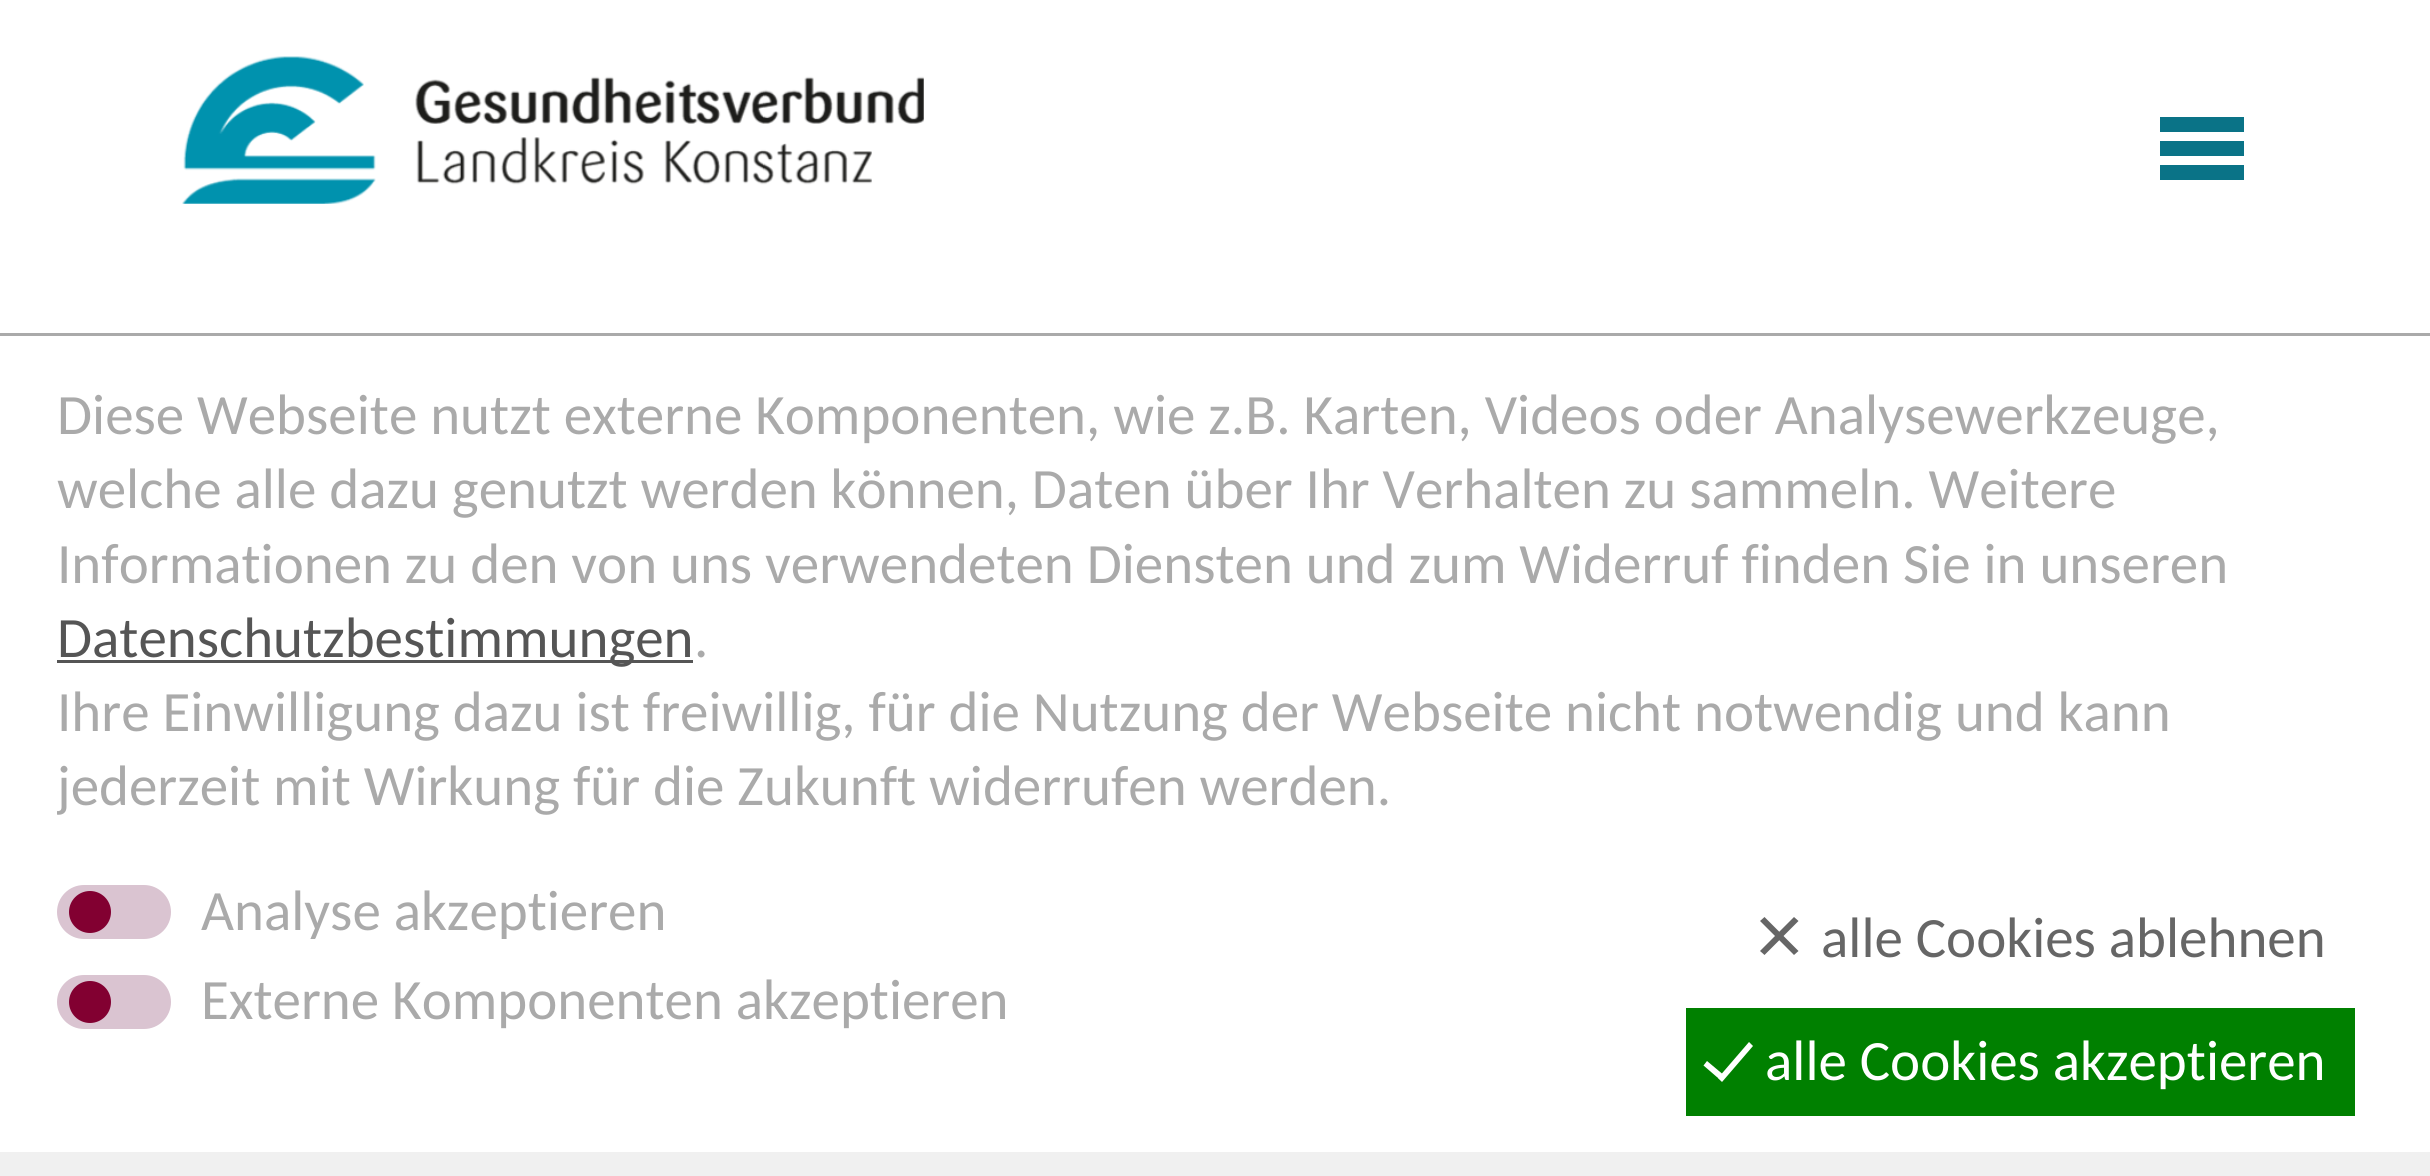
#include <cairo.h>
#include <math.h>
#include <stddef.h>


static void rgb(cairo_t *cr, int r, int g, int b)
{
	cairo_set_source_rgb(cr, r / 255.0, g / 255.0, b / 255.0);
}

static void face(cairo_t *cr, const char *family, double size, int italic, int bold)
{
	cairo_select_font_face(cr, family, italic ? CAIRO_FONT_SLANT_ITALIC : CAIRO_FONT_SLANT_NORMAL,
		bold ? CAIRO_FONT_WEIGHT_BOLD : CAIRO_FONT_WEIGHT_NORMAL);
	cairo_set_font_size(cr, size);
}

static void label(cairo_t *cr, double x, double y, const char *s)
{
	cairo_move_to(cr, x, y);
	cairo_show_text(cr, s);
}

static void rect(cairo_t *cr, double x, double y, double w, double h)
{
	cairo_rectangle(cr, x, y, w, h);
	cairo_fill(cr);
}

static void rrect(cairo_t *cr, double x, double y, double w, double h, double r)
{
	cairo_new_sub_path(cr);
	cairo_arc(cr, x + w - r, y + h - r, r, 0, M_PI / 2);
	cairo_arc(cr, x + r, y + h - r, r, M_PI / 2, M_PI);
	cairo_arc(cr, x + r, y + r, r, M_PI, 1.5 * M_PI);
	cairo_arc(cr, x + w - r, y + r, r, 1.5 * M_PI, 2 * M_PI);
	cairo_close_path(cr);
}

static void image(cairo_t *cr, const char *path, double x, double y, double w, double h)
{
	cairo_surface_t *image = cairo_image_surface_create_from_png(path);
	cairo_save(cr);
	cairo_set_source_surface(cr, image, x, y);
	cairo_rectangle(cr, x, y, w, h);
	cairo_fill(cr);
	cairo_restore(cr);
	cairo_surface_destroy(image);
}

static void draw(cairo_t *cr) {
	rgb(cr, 255, 255, 255);
	cairo_paint(cr);
	image(cr, "image0.png", 182, 56, 742, 148);
	rgb(cr, 10, 115, 135);
	rect(cr, 2160, 117, 84, 15);
	rect(cr, 2160, 141, 84, 15);
	rect(cr, 2160, 165, 84, 15);
	rgb(cr, 170, 170, 170);
	rect(cr, 0, 333, 2430, 3);
	face(cr, "Carlito", 57, 0, 0);
	label(cr, 57, 434, "Diese Webseite nutzt externe Komponenten, wie z.B. Karten, Videos oder Analysewerkzeuge,");
	label(cr, 57, 508, "welche alle dazu genutzt werden können, Daten über Ihr Verhalten zu sammeln. Weitere");
	label(cr, 57, 583, "Informationen zu den von uns verwendeten Diensten und zum Widerruf finden Sie in unseren");
	rgb(cr, 85, 85, 85);
	rect(cr, 57, 660, 636, 3);
	label(cr, 57, 657, "Datenschutzbestimmungen");
	rgb(cr, 170, 170, 170);
	label(cr, 694, 657, ".");
	label(cr, 57, 731, "Ihre Einwilligung dazu ist freiwillig, für die Nutzung der Webseite nicht notwendig und kann");
	cairo_save(cr);
	cairo_rectangle(cr, 57, 336, 2316, 840);
	cairo_clip(cr);
	label(cr, 57, 805, "jederzeit mit Wirkung für die Zukunft widerrufen werden.");
	cairo_restore(cr);
	rgb(cr, 218, 196, 209);
	rrect(cr, 57, 885, 114, 54, 27);
	cairo_fill(cr);
	cairo_save(cr);
	cairo_rectangle(cr, 57, 885, 609, 54);
	cairo_clip(cr);
	rgb(cr, 170, 170, 170);
	label(cr, 201, 930, "Analyse akzeptieren");
	cairo_restore(cr);
	rgb(cr, 130, 0, 49);
	cairo_new_path(cr);
	cairo_arc(cr, 90, 912, 21, 0, 2 * M_PI);
	cairo_fill(cr);
	rgb(cr, 218, 196, 209);
	rrect(cr, 57, 975, 114, 54, 27);
	cairo_fill(cr);
	rgb(cr, 170, 170, 170);
	label(cr, 201, 1019, "Externe Komponenten akzeptieren");
	rgb(cr, 130, 0, 49);
	cairo_new_path(cr);
	cairo_arc(cr, 90, 1002, 21, 0, 2 * M_PI);
	cairo_fill(cr);
	rgb(cr, 102, 102, 102);
	cairo_new_path(cr);
	cairo_move_to(cr, 1764.5, 917);
	cairo_line_to(cr, 1798.5, 951);
	cairo_line_to(cr, 1794, 955);
	cairo_line_to(cr, 1760, 921);
	cairo_close_path(cr);
	cairo_fill(cr);
	cairo_new_path(cr);
	cairo_move_to(cr, 1760, 951);
	cairo_line_to(cr, 1794, 917);
	cairo_line_to(cr, 1798.5, 921);
	cairo_line_to(cr, 1764.5, 955);
	cairo_close_path(cr);
	cairo_fill(cr);
	label(cr, 1821, 957, "alle Cookies ablehnen");
	rgb(cr, 0, 128, 0);
	rect(cr, 1686, 1008, 669, 108);
	rgb(cr, 255, 255, 255);
	cairo_new_path(cr);
	cairo_move_to(cr, 1707, 1061);
	cairo_line_to(cr, 1725.5, 1076.5);
	cairo_line_to(cr, 1721.5, 1081);
	cairo_line_to(cr, 1703.5, 1065.5);
	cairo_close_path(cr);
	cairo_fill(cr);
	cairo_new_path(cr);
	cairo_move_to(cr, 1718, 1078);
	cairo_line_to(cr, 1749, 1042);
	cairo_line_to(cr, 1753, 1046);
	cairo_line_to(cr, 1722, 1082);
	cairo_close_path(cr);
	cairo_fill(cr);
	label(cr, 1765, 1080, "alle Cookies akzeptieren");
	rgb(cr, 240, 240, 240);
	rect(cr, 0, 1152, 2430, 24);
}

int main(void) {
	cairo_surface_t *surface = cairo_image_surface_create(CAIRO_FORMAT_RGB24, 2430, 1176);
	cairo_t *cr = cairo_create(surface);
	cairo_font_options_t *options = cairo_font_options_create();
	cairo_font_options_set_hint_metrics(options, CAIRO_HINT_METRICS_OFF);
	cairo_font_options_set_hint_style(options, CAIRO_HINT_STYLE_NONE);
	cairo_set_font_options(cr, options);
	cairo_set_miter_limit(cr, 4);
	draw(cr);
	cairo_surface_write_to_png(surface, "render.png");
	cairo_font_options_destroy(options);
	cairo_destroy(cr);
	cairo_surface_destroy(surface);
	return 0;
}
